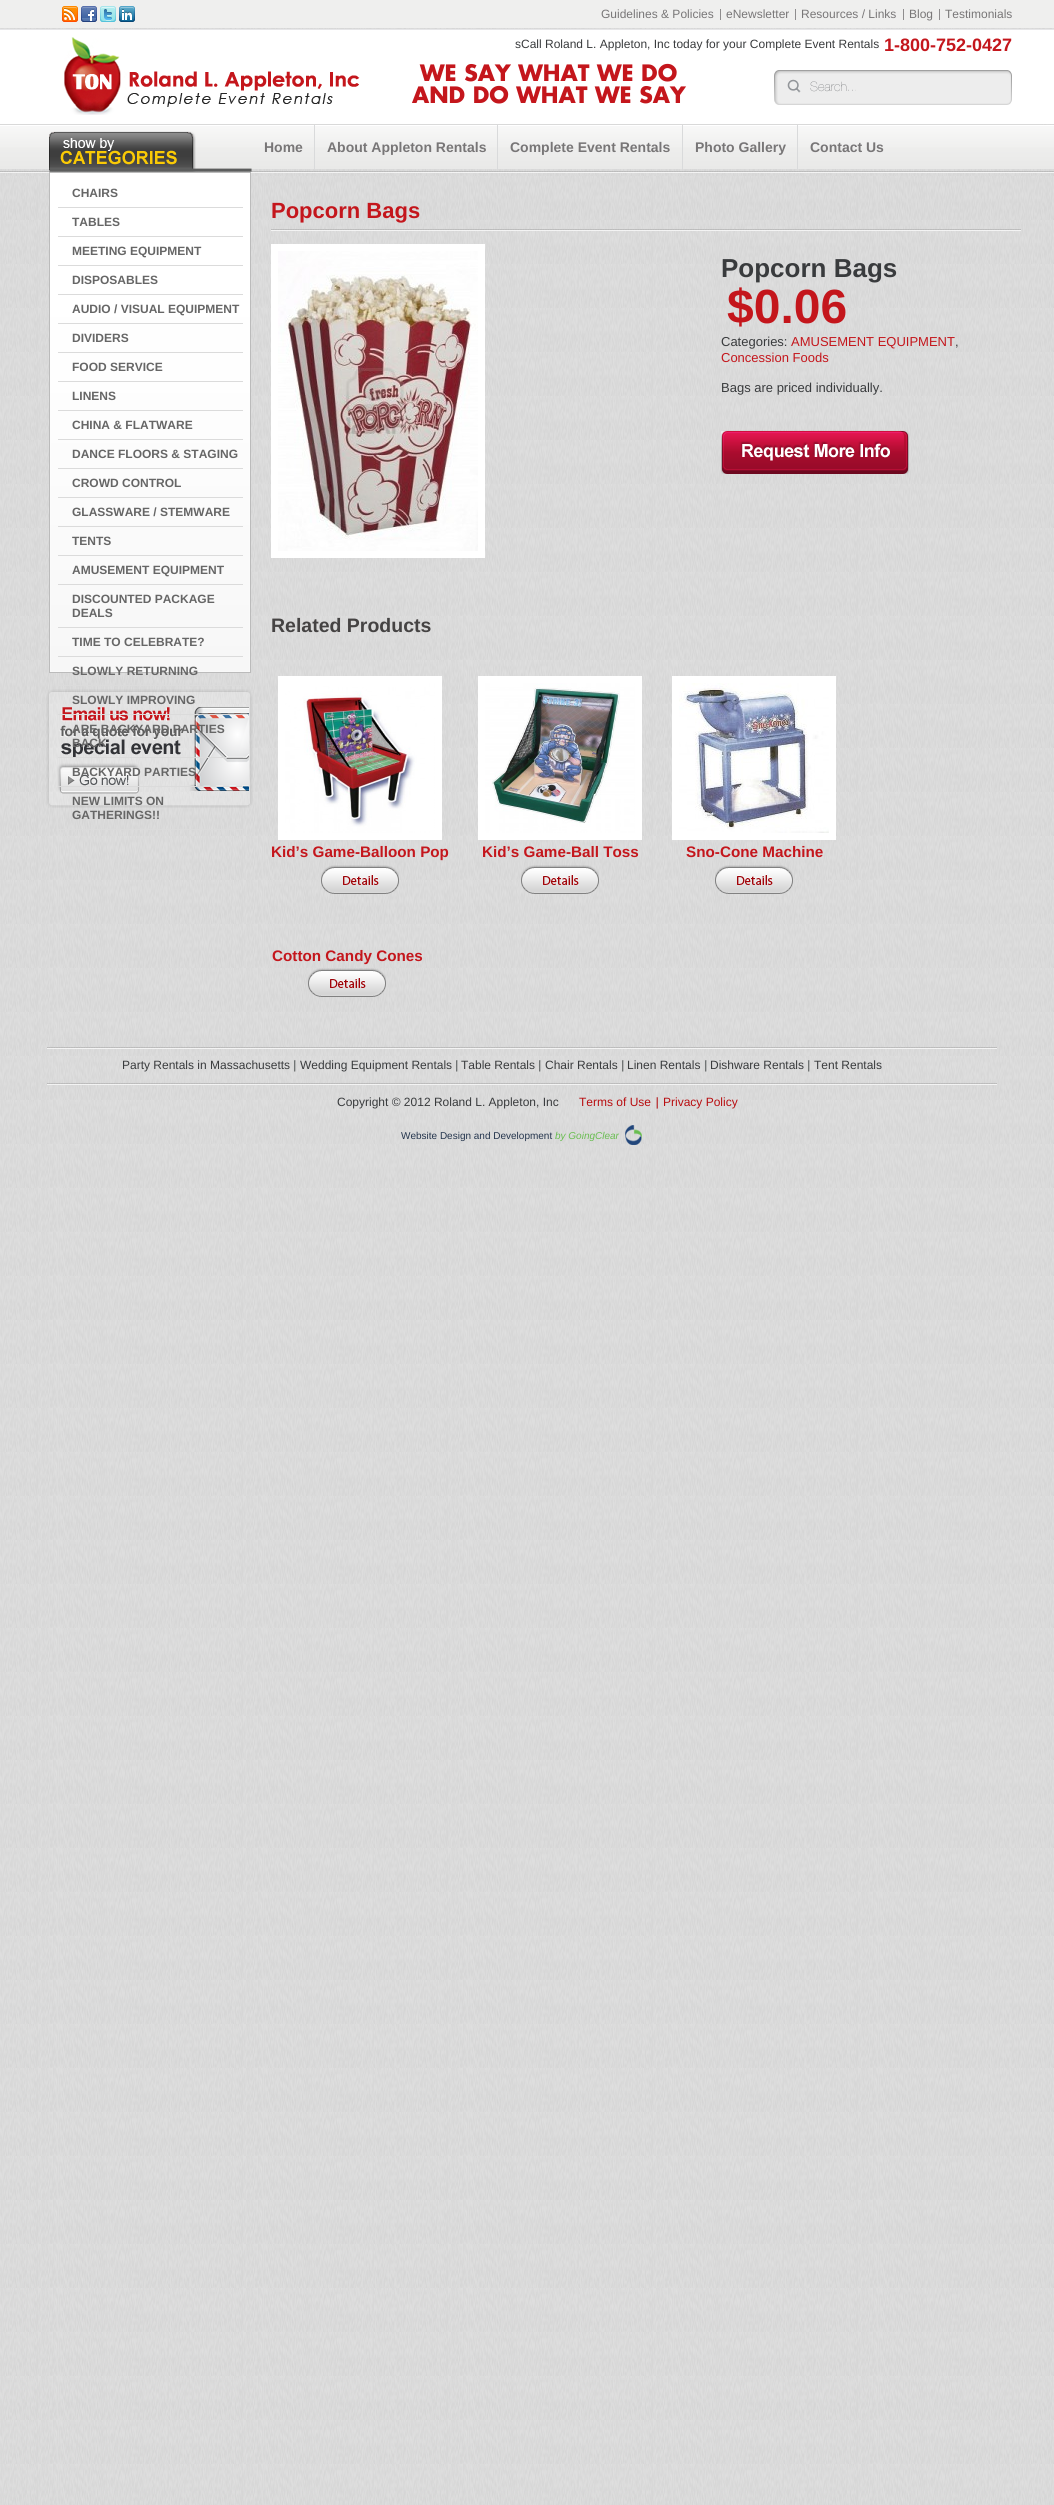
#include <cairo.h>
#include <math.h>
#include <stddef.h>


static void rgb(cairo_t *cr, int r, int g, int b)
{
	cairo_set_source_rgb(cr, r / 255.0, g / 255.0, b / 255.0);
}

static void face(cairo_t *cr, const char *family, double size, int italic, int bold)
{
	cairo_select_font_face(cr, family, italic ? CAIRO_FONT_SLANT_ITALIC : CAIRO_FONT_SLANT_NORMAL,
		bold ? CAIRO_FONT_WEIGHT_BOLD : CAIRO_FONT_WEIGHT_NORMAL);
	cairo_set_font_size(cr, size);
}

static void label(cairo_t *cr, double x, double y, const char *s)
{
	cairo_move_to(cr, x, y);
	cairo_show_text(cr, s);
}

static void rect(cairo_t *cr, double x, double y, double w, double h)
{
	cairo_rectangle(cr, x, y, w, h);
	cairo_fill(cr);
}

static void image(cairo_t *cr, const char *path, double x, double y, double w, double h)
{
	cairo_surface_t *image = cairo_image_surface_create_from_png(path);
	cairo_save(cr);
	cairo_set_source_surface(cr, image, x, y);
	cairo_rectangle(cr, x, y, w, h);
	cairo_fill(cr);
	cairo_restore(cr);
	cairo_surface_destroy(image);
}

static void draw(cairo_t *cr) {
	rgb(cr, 255, 255, 255);
	cairo_paint(cr);
	image(cr, "image0.png", 0, 28, 1054, 2477);
	rgb(cr, 239, 239, 238);
	rect(cr, 0, 0, 1054, 28);
	image(cr, "image1.png", 62, 6, 16, 16);
	image(cr, "image2.png", 81, 6, 16, 16);
	image(cr, "image3.png", 100, 6, 16, 16);
	image(cr, "image4.png", 119, 6, 16, 16);
	rgb(cr, 143, 141, 142);
	rect(cr, 720, 9, 1, 11);
	face(cr, "Liberation Sans", 12, 0, 0);
	rgb(cr, 120, 118, 119);
	label(cr, 601, 18, "Guidelines & Policies");
	rgb(cr, 143, 141, 142);
	rect(cr, 795, 9, 1, 11);
	rgb(cr, 120, 118, 119);
	label(cr, 726, 18, "eNewsletter");
	rgb(cr, 143, 141, 142);
	rect(cr, 903, 9, 1, 11);
	rgb(cr, 120, 118, 119);
	label(cr, 801, 18, "Resources / Links");
	rgb(cr, 143, 141, 142);
	rect(cr, 939, 9, 1, 11);
	rgb(cr, 120, 118, 119);
	label(cr, 909, 18, "Blog");
	label(cr, 945, 18, "Testimonials");
	rgb(cr, 230, 230, 232);
	rect(cr, 0, 29, 1054, 1);
	rgb(cr, 255, 255, 255);
	rect(cr, 0, 30, 1054, 94);
	image(cr, "image5.png", 64, 37, 296, 78);
	rgb(cr, 57, 59, 61);
	label(cr, 515, 48, "sCall Roland L. Appleton, Inc today for your Complete Event Rentals");
	face(cr, "Liberation Sans", 18, 0, 1);
	rgb(cr, 196, 22, 28);
	label(cr, 884, 51, "1-800-752-0427");
	face(cr, "Futura", 22, 0, 1);
	label(cr, 420, 81, "WE SAY WHAT WE DO");
	label(cr, 412, 103, "AND DO WHAT WE SAY");
	image(cr, "image6.png", 774, 70, 238, 35);
	face(cr, "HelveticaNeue", 13, 0, 0);
	rgb(cr, 85, 88, 91);
	label(cr, 810, 91, "Search...");
	rgb(cr, 255, 255, 255);
	rect(cr, 0, 125, 1054, 1);
	image(cr, "image7.png", 0, 126, 1054, 43);
	rgb(cr, 217, 217, 217);
	rect(cr, 0, 124, 1042, 1);
	rgb(cr, 217, 218, 219);
	rect(cr, 314, 125, 1, 44);
	face(cr, "Liberation Sans", 14, 0, 1);
	rgb(cr, 120, 118, 119);
	label(cr, 264, 152, "Home");
	rgb(cr, 217, 218, 219);
	rect(cr, 497, 125, 1, 44);
	rgb(cr, 120, 118, 119);
	label(cr, 327, 152, "About Appleton Rentals");
	rgb(cr, 217, 218, 219);
	rect(cr, 682, 125, 1, 44);
	rgb(cr, 120, 118, 119);
	label(cr, 510, 152, "Complete Event Rentals");
	rgb(cr, 217, 218, 219);
	rect(cr, 797, 125, 1, 44);
	rgb(cr, 120, 118, 119);
	label(cr, 695, 152, "Photo Gallery");
	label(cr, 810, 152, "Contact Us");
	image(cr, "image8.png", 0, 171, 1054, 2);
	image(cr, "image9.png", 49, 131, 203, 41);
	image(cr, "image10.png", 49, 172, 202, 501);
	rgb(cr, 219, 219, 219);
	rect(cr, 58, 207, 185, 1);
	face(cr, "Liberation Sans", 12, 0, 1);
	rgb(cr, 102, 102, 102);
	label(cr, 72, 197, "CHAIRS");
	rgb(cr, 219, 219, 219);
	rect(cr, 58, 236, 185, 1);
	rgb(cr, 102, 102, 102);
	label(cr, 72, 226, "TABLES");
	rgb(cr, 219, 219, 219);
	rect(cr, 58, 265, 185, 1);
	rgb(cr, 102, 102, 102);
	label(cr, 72, 255, "MEETING EQUIPMENT");
	rgb(cr, 219, 219, 219);
	rect(cr, 58, 294, 185, 1);
	rgb(cr, 102, 102, 102);
	label(cr, 72, 284, "DISPOSABLES");
	rgb(cr, 219, 219, 219);
	rect(cr, 58, 323, 185, 1);
	rgb(cr, 102, 102, 102);
	label(cr, 72, 313, "AUDIO / VISUAL EQUIPMENT");
	rgb(cr, 219, 219, 219);
	rect(cr, 58, 352, 185, 1);
	rgb(cr, 102, 102, 102);
	label(cr, 72, 342, "DIVIDERS");
	rgb(cr, 219, 219, 219);
	rect(cr, 58, 381, 185, 1);
	rgb(cr, 102, 102, 102);
	label(cr, 72, 371, "FOOD SERVICE");
	rgb(cr, 219, 219, 219);
	rect(cr, 58, 410, 185, 1);
	rgb(cr, 102, 102, 102);
	label(cr, 72, 400, "LINENS");
	rgb(cr, 219, 219, 219);
	rect(cr, 58, 439, 185, 1);
	rgb(cr, 102, 102, 102);
	label(cr, 72, 429, "CHINA & FLATWARE");
	rgb(cr, 219, 219, 219);
	rect(cr, 58, 468, 185, 1);
	rgb(cr, 102, 102, 102);
	label(cr, 72, 458, "DANCE FLOORS & STAGING");
	rgb(cr, 219, 219, 219);
	rect(cr, 58, 497, 185, 1);
	rgb(cr, 102, 102, 102);
	label(cr, 72, 487, "CROWD CONTROL");
	rgb(cr, 219, 219, 219);
	rect(cr, 58, 526, 185, 1);
	rgb(cr, 102, 102, 102);
	label(cr, 72, 516, "GLASSWARE / STEMWARE");
	rgb(cr, 219, 219, 219);
	rect(cr, 58, 555, 185, 1);
	rgb(cr, 102, 102, 102);
	label(cr, 72, 545, "TENTS");
	rgb(cr, 219, 219, 219);
	rect(cr, 58, 584, 185, 1);
	rgb(cr, 102, 102, 102);
	label(cr, 72, 574, "AMUSEMENT EQUIPMENT");
	rgb(cr, 219, 219, 219);
	rect(cr, 58, 627, 185, 1);
	rgb(cr, 102, 102, 102);
	label(cr, 72, 603, "DISCOUNTED PACKAGE");
	label(cr, 72, 617, "DEALS");
	rgb(cr, 219, 219, 219);
	rect(cr, 58, 656, 185, 1);
	rgb(cr, 102, 102, 102);
	label(cr, 72, 646, "TIME TO CELEBRATE?");
	rgb(cr, 219, 219, 219);
	rect(cr, 58, 685, 185, 1);
	rgb(cr, 102, 102, 102);
	label(cr, 72, 675, "SLOWLY RETURNING");
	image(cr, "image11.png", 46, 689, 207, 119);
	rgb(cr, 219, 219, 219);
	rect(cr, 58, 714, 185, 1);
	rgb(cr, 102, 102, 102);
	label(cr, 72, 704, "SLOWLY IMPROVING");
	rgb(cr, 219, 219, 219);
	rect(cr, 58, 757, 185, 1);
	rgb(cr, 102, 102, 102);
	label(cr, 72, 733, "ARE BACKYARD PARTIES");
	label(cr, 72, 747, "BACK");
	rgb(cr, 219, 219, 219);
	rect(cr, 58, 786, 185, 1);
	rgb(cr, 102, 102, 102);
	label(cr, 72, 776, "BACKYARD PARTIES");
	rgb(cr, 219, 219, 219);
	rect(cr, 58, 829, 185, 1);
	rgb(cr, 102, 102, 102);
	label(cr, 72, 805, "NEW LIMITS ON");
	label(cr, 72, 819, "GATHERINGS!!");
	face(cr, "Liberation Sans", 22, 0, 1);
	rgb(cr, 196, 22, 28);
	label(cr, 271, 218, "Popcorn Bags");
	image(cr, "image12.png", 271, 229, 750, 2);
	cairo_rectangle(cr, 274.5, 247.5, 207, 307);
	rgb(cr, 255, 255, 255);
	cairo_set_line_width(cr, 7);
	cairo_stroke(cr);
	image(cr, "image13.png", 278, 251, 200, 300);
	face(cr, "Liberation Sans", 26, 0, 1);
	rgb(cr, 57, 59, 61);
	label(cr, 721, 277, "Popcorn Bags");
	face(cr, "Liberation Sans", 48, 0, 1);
	rgb(cr, 196, 22, 28);
	label(cr, 727, 323, "$0.06");
	face(cr, "Liberation Sans", 13, 0, 0);
	rgb(cr, 57, 59, 61);
	label(cr, 721, 346, "Categories:");
	rgb(cr, 196, 22, 28);
	label(cr, 791, 346, "AMUSEMENT EQUIPMENT");
	rgb(cr, 57, 59, 61);
	label(cr, 955, 346, ",");
	rgb(cr, 196, 22, 28);
	label(cr, 721, 362, "Concession Foods");
	rgb(cr, 57, 59, 61);
	label(cr, 721, 392, "Bags are priced individually.");
	image(cr, "image14.png", 721, 430, 188, 44);
	face(cr, "Liberation Sans", 19.5, 0, 1);
	rgb(cr, 69, 67, 67);
	label(cr, 271, 632, "Related Products");
	cairo_rectangle(cr, 281.5, 679.5, 157, 157);
	rgb(cr, 255, 255, 255);
	cairo_stroke(cr);
	image(cr, "image15.png", 285, 683, 150, 150);
	face(cr, "Liberation Sans", 15.25, 0, 1);
	rgb(cr, 196, 22, 28);
	label(cr, 271, 857, "Kid’s Game-Balloon Pop");
	image(cr, "image16.png", 321, 865, 78, 29);
	cairo_rectangle(cr, 481.5, 679.5, 157, 157);
	rgb(cr, 255, 255, 255);
	cairo_stroke(cr);
	image(cr, "image17.png", 485, 683, 150, 150);
	rgb(cr, 196, 22, 28);
	label(cr, 482, 857, "Kid’s Game-Ball Toss");
	image(cr, "image18.png", 521, 865, 78, 29);
	cairo_rectangle(cr, 675.5, 679.5, 157, 157);
	rgb(cr, 255, 255, 255);
	cairo_stroke(cr);
	image(cr, "image19.png", 679, 683, 150, 150);
	rgb(cr, 196, 22, 28);
	label(cr, 686, 857, "Sno-Cone Machine");
	image(cr, "image20.png", 715, 865, 78, 29);
	label(cr, 272, 961, "Cotton Candy Cones");
	image(cr, "image21.png", 308, 968, 78, 29);
	image(cr, "image22.png", 47, 1047, 950, 2);
	face(cr, "Liberation Sans", 12, 0, 0);
	rgb(cr, 57, 59, 61);
	label(cr, 122, 1069, "Party Rentals in Massachusetts");
	image(cr, "image23.png", 294, 1060, 2, 12);
	label(cr, 300, 1069, "Wedding Equipment Rentals");
	image(cr, "image23.png", 456, 1060, 2, 12);
	label(cr, 461, 1069, "Table Rentals");
	image(cr, "image23.png", 539, 1060, 2, 12);
	label(cr, 545, 1069, "Chair Rentals");
	image(cr, "image23.png", 622, 1060, 2, 12);
	label(cr, 627, 1069, "Linen Rentals");
	image(cr, "image23.png", 705, 1060, 2, 12);
	label(cr, 710, 1069, "Dishware Rentals");
	image(cr, "image23.png", 808, 1060, 2, 12);
	label(cr, 814, 1069, "Tent Rentals");
	image(cr, "image22.png", 47, 1083, 950, 2);
	label(cr, 337, 1106, "Copyright © 2012 Roland L. Appleton, Inc");
	rgb(cr, 184, 13, 16);
	label(cr, 579, 1106, "Terms of Use");
	image(cr, "image24.png", 656, 1097, 2, 12);
	label(cr, 663, 1106, "Privacy Policy");
	face(cr, "Liberation Sans", 10, 0, 0);
	rgb(cr, 36, 53, 77);
	label(cr, 401, 1139, "Website Design and Development");
	face(cr, "Liberation Sans", 10, 1, 0);
	rgb(cr, 105, 189, 81);
	label(cr, 555, 1139, "by GoingClear");
	image(cr, "image25.png", 625, 1125, 17, 20);
}

int main(void) {
	cairo_surface_t *surface = cairo_image_surface_create(CAIRO_FORMAT_RGB24, 1054, 2505);
	cairo_t *cr = cairo_create(surface);
	cairo_font_options_t *options = cairo_font_options_create();
	cairo_font_options_set_hint_metrics(options, CAIRO_HINT_METRICS_OFF);
	cairo_font_options_set_hint_style(options, CAIRO_HINT_STYLE_NONE);
	cairo_set_font_options(cr, options);
	cairo_set_miter_limit(cr, 4);
	draw(cr);
	cairo_surface_write_to_png(surface, "render.png");
	cairo_font_options_destroy(options);
	cairo_destroy(cr);
	cairo_surface_destroy(surface);
	return 0;
}
